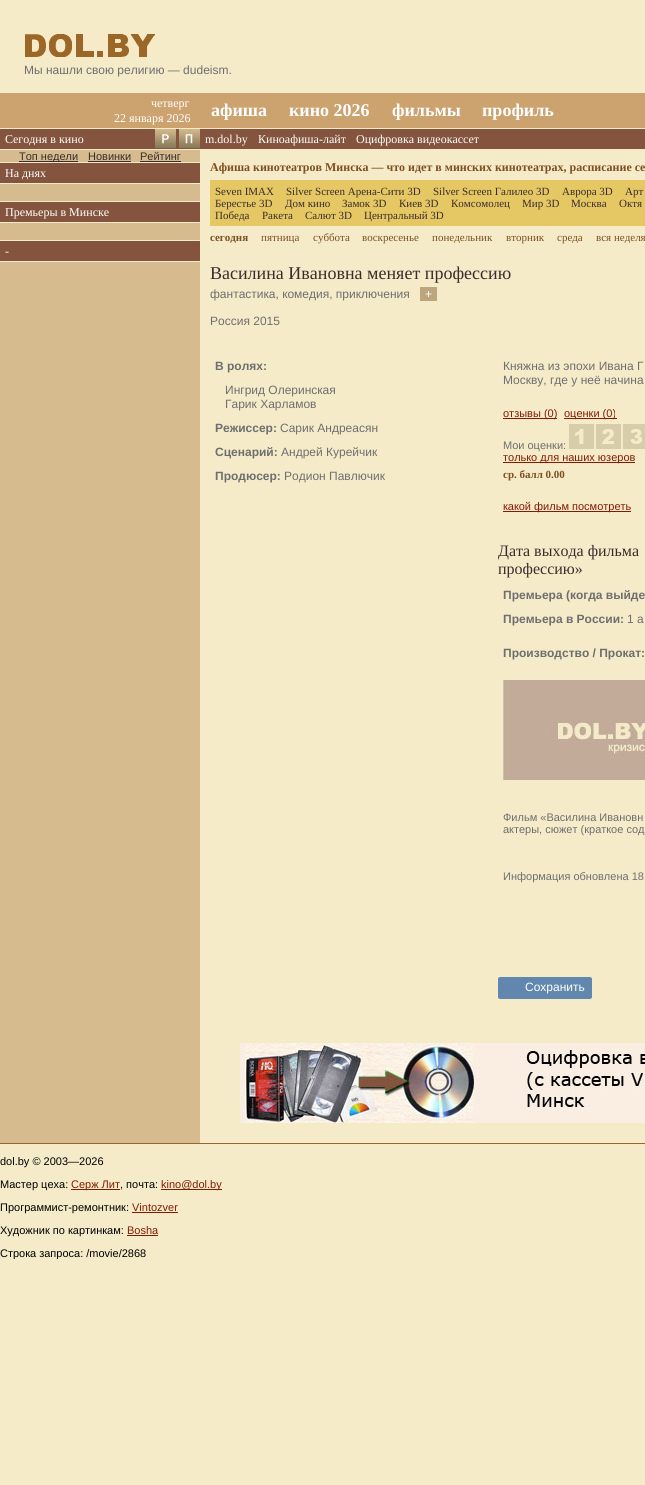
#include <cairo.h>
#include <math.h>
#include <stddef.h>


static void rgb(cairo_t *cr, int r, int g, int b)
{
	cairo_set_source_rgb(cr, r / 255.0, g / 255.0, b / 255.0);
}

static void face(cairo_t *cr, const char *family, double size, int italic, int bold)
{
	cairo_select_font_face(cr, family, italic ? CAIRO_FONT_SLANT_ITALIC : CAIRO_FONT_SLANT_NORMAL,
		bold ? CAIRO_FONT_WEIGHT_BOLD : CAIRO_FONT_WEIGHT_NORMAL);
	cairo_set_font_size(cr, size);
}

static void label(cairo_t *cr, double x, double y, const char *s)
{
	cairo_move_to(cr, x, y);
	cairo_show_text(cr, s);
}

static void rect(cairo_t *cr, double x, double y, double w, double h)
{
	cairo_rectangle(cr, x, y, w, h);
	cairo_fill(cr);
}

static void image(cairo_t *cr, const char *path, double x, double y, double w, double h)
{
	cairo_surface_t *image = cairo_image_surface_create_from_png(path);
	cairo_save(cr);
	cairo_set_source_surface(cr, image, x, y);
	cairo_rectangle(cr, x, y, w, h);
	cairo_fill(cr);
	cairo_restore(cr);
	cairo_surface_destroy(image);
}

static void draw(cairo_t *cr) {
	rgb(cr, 245, 235, 201);
	cairo_paint(cr);
	image(cr, "image0.png", 24, 33, 131, 24);
	face(cr, "Liberation Sans", 12, 0, 0);
	rgb(cr, 110, 110, 111);
	label(cr, 24, 74, "Мы нашли свою религию — dudeism.");
	rgb(cr, 204, 162, 110);
	rect(cr, 0, 93, 645, 35);
	face(cr, "Liberation Serif", 12, 0, 0);
	rgb(cr, 255, 255, 255);
	label(cr, 151, 107, "четверг");
	label(cr, 114, 122, "22 января 2026");
	face(cr, "Liberation Serif", 18, 0, 1);
	label(cr, 211, 116, "афиша");
	label(cr, 289, 116, "кино 2026");
	label(cr, 392, 116, "фильмы");
	label(cr, 482, 116, "профиль");
	rgb(cr, 213, 187, 141);
	rect(cr, 0, 150, 200, 993);
	rgb(cr, 132, 84, 62);
	rect(cr, 0, 129, 645, 20);
	face(cr, "Liberation Serif", 12, 0, 0);
	rgb(cr, 255, 255, 255);
	label(cr, 5, 143, "Сегодня в кино");
	image(cr, "image1.png", 155, 129, 21, 19);
	image(cr, "image2.png", 179, 129, 21, 19);
	rgb(cr, 58, 44, 44);
	rect(cr, 19, 161, 59, 1);
	rgb(cr, 245, 235, 201);
	rect(cr, 0, 162, 200, 1);
	face(cr, "Liberation Sans", 11, 0, 0);
	rgb(cr, 58, 44, 44);
	label(cr, 19, 160, "Топ недели");
	label(cr, 88, 160, "Новинки");
	rect(cr, 88, 161, 43, 1);
	label(cr, 140, 160, "Рейтинг");
	rect(cr, 140, 161, 41, 1);
	rgb(cr, 132, 84, 62);
	rect(cr, 0, 163, 200, 20);
	rgb(cr, 245, 235, 201);
	rect(cr, 0, 183, 200, 1);
	face(cr, "Liberation Serif", 12, 0, 0);
	rgb(cr, 255, 255, 255);
	label(cr, 5, 177, "На днях");
	rgb(cr, 132, 84, 62);
	rect(cr, 0, 202, 200, 20);
	rgb(cr, 245, 235, 201);
	rect(cr, 0, 201, 200, 1);
	rect(cr, 0, 222, 200, 1);
	rgb(cr, 255, 255, 255);
	label(cr, 5, 216, "Премьеры в Минске");
	rgb(cr, 132, 84, 62);
	rect(cr, 0, 241, 200, 20);
	rgb(cr, 245, 235, 201);
	rect(cr, 0, 240, 200, 1);
	rect(cr, 0, 261, 200, 1);
	rgb(cr, 255, 255, 255);
	label(cr, 5, 255, "-");
	label(cr, 205, 143, "m.dol.by");
	label(cr, 258, 143, "Киноафиша-лайт");
	label(cr, 356, 143, "Оцифровка видеокассет");
	face(cr, "Liberation Serif", 12, 0, 1);
	rgb(cr, 126, 79, 32);
	label(cr, 210, 171, "Афиша кинотеатров Минска — что идет в минских кинотеатрах, расписание се");
	rgb(cr, 229, 199, 99);
	rect(cr, 210, 180, 435, 46);
	face(cr, "Liberation Serif", 11, 0, 0);
	rgb(cr, 58, 44, 44);
	label(cr, 215, 195, "Seven IMAX");
	label(cr, 286, 195, "Silver Screen Арена-Сити 3D");
	label(cr, 433, 195, "Silver Screen Галилео 3D");
	label(cr, 562, 195, "Аврора 3D");
	label(cr, 625, 195, "Арт");
	label(cr, 215, 207, "Берестье 3D");
	label(cr, 285, 207, "Дом кино");
	label(cr, 342, 207, "Замок 3D");
	label(cr, 399, 207, "Киев 3D");
	label(cr, 451, 207, "Комсомолец");
	label(cr, 522, 207, "Мир 3D");
	label(cr, 571, 207, "Москва");
	label(cr, 619, 207, "Октя");
	label(cr, 215, 219, "Победа");
	label(cr, 262, 219, "Ракета");
	label(cr, 305, 219, "Салют 3D");
	label(cr, 364, 219, "Центральный 3D");
	face(cr, "Liberation Serif", 11, 0, 1);
	rgb(cr, 126, 79, 32);
	label(cr, 210, 241, "сегодня");
	face(cr, "Liberation Serif", 11, 0, 0);
	label(cr, 261, 241, "пятница");
	label(cr, 313, 241, "суббота");
	label(cr, 362, 241, "воскресенье");
	label(cr, 432, 241, "понедельник");
	label(cr, 506, 241, "вторник");
	label(cr, 557, 241, "среда");
	label(cr, 596, 241, "вся неделя");
	face(cr, "Liberation Serif", 18, 0, 0);
	rgb(cr, 58, 44, 44);
	label(cr, 210, 279, "Василина Ивановна меняет профессию");
	face(cr, "Liberation Sans", 12, 0, 0);
	rgb(cr, 110, 110, 111);
	label(cr, 210, 298, "фантастика, комедия, приключения");
	rgb(cr, 189, 165, 125);
	rect(cr, 420, 287, 17, 14);
	rgb(cr, 255, 255, 255);
	label(cr, 425, 298, "+");
	rgb(cr, 110, 110, 111);
	label(cr, 210, 325, "Россия 2015");
	face(cr, "Liberation Sans", 12, 0, 1);
	label(cr, 215, 370, "В ролях:");
	face(cr, "Liberation Sans", 12, 0, 0);
	label(cr, 225, 394, "Ингрид Олеринская");
	label(cr, 225, 408, "Гарик Харламов");
	face(cr, "Liberation Sans", 12, 0, 1);
	label(cr, 215, 432, "Режиссер:");
	face(cr, "Liberation Sans", 12, 0, 0);
	label(cr, 280, 432, "Сарик Андреасян");
	face(cr, "Liberation Sans", 12, 0, 1);
	label(cr, 215, 456, "Сценарий:");
	face(cr, "Liberation Sans", 12, 0, 0);
	label(cr, 281, 456, "Андрей Курейчик");
	face(cr, "Liberation Sans", 12, 0, 1);
	label(cr, 215, 480, "Продюсер:");
	face(cr, "Liberation Sans", 12, 0, 0);
	label(cr, 284, 480, "Родион Павлючик");
	label(cr, 503, 370, "Княжна из эпохи Ивана Г");
	label(cr, 503, 384, "Москву, где у неё начина");
	rgb(cr, 131, 27, 3);
	rect(cr, 503, 418, 54, 1);
	face(cr, "Liberation Sans", 11, 0, 0);
	label(cr, 503, 417, "отзывы (0)");
	rect(cr, 564, 418, 53, 1);
	label(cr, 564, 417, "оценки (0)");
	rgb(cr, 110, 110, 111);
	label(cr, 503, 449, "Мои оценки:");
	image(cr, "image3.png", 569, 424, 76, 25);
	rgb(cr, 131, 27, 3);
	rect(cr, 503, 462, 132, 1);
	label(cr, 503, 461, "только для наших юзеров");
	face(cr, "Liberation Serif", 11, 0, 1);
	rgb(cr, 126, 79, 32);
	label(cr, 503, 478, "cр. балл 0.00");
	rgb(cr, 131, 27, 3);
	rect(cr, 503, 511, 128, 1);
	face(cr, "Liberation Sans", 11, 0, 0);
	label(cr, 503, 510, "какой фильм посмотреть");
	face(cr, "Liberation Serif", 16, 0, 0);
	rgb(cr, 58, 44, 44);
	label(cr, 498, 556, "Дата выхода фильма");
	label(cr, 498, 574, "профессию»");
	face(cr, "Liberation Sans", 12, 0, 1);
	rgb(cr, 110, 110, 111);
	label(cr, 503, 599, "Премьера (когда выйде");
	label(cr, 503, 623, "Премьера в России:");
	face(cr, "Liberation Sans", 12, 0, 0);
	label(cr, 627, 623, "1 а");
	face(cr, "Liberation Sans", 12, 0, 1);
	label(cr, 503, 657, "Производство / Прокат:");
	image(cr, "image4.png", 503, 680, 142, 100);
	face(cr, "Liberation Sans", 11, 0, 0);
	label(cr, 503, 821, "Фильм «Василина Ивановн");
	label(cr, 503, 833, "актеры, сюжет (краткое сод");
	label(cr, 503, 880, "Информация обновлена 18");
	rgb(cr, 98, 135, 174);
	cairo_new_path(cr);
	cairo_move_to(cr, 500, 977);
	cairo_line_to(cr, 525, 977);
	cairo_line_to(cr, 525, 999);
	cairo_line_to(cr, 500, 999);
	cairo_curve_to(cr, 499, 999, 498, 998, 498, 997);
	cairo_line_to(cr, 498, 979);
	cairo_curve_to(cr, 498, 978, 499, 977, 500, 977);
	cairo_close_path(cr);
	cairo_fill(cr);
	cairo_new_path(cr);
	cairo_move_to(cr, 525, 977);
	cairo_line_to(cr, 590, 977);
	cairo_curve_to(cr, 591, 977, 592, 978, 592, 979);
	cairo_line_to(cr, 592, 997);
	cairo_curve_to(cr, 592, 998, 591, 999, 590, 999);
	cairo_line_to(cr, 525, 999);
	cairo_close_path(cr);
	cairo_fill(cr);
	face(cr, "Liberation Sans", 12, 0, 0);
	rgb(cr, 255, 255, 255);
	label(cr, 525, 991, "Сохранить");
	image(cr, "image5.png", 240, 1043, 405, 80);
	rgb(cr, 155, 103, 40);
	rect(cr, 0, 1143, 645, 1);
	face(cr, "Liberation Sans", 11, 0, 0);
	rgb(cr, 0, 0, 0);
	label(cr, 0, 1165, "dol.by © 2003—2026");
	label(cr, 0, 1188, "Мастер цеха:");
	rgb(cr, 131, 27, 3);
	rect(cr, 71, 1189, 49, 1);
	label(cr, 71, 1188, "Серж Лит");
	rgb(cr, 0, 0, 0);
	label(cr, 120, 1188, ", почта:");
	rgb(cr, 131, 27, 3);
	rect(cr, 161, 1189, 61, 1);
	label(cr, 161, 1188, "kino@dol.by");
	rgb(cr, 0, 0, 0);
	label(cr, 0, 1211, "Программист-ремонтник:");
	rgb(cr, 131, 27, 3);
	label(cr, 132, 1211, "Vintozver");
	rect(cr, 132, 1212, 46, 1);
	rgb(cr, 0, 0, 0);
	label(cr, 0, 1234, "Художник по картинкам:");
	rgb(cr, 131, 27, 3);
	label(cr, 127, 1234, "Bosha");
	rect(cr, 127, 1235, 31, 1);
	cairo_save(cr);
	cairo_rectangle(cr, 0, 1247, 200, 12);
	cairo_clip(cr);
	rgb(cr, 0, 0, 0);
	label(cr, 0, 1257, "Строка запроса: /movie/2868");
	cairo_restore(cr);
}

int main(void) {
	cairo_surface_t *surface = cairo_image_surface_create(CAIRO_FORMAT_RGB24, 645, 1485);
	cairo_t *cr = cairo_create(surface);
	cairo_font_options_t *options = cairo_font_options_create();
	cairo_font_options_set_hint_metrics(options, CAIRO_HINT_METRICS_OFF);
	cairo_font_options_set_hint_style(options, CAIRO_HINT_STYLE_NONE);
	cairo_set_font_options(cr, options);
	cairo_set_miter_limit(cr, 4);
	draw(cr);
	cairo_surface_write_to_png(surface, "render.png");
	cairo_font_options_destroy(options);
	cairo_destroy(cr);
	cairo_surface_destroy(surface);
	return 0;
}
